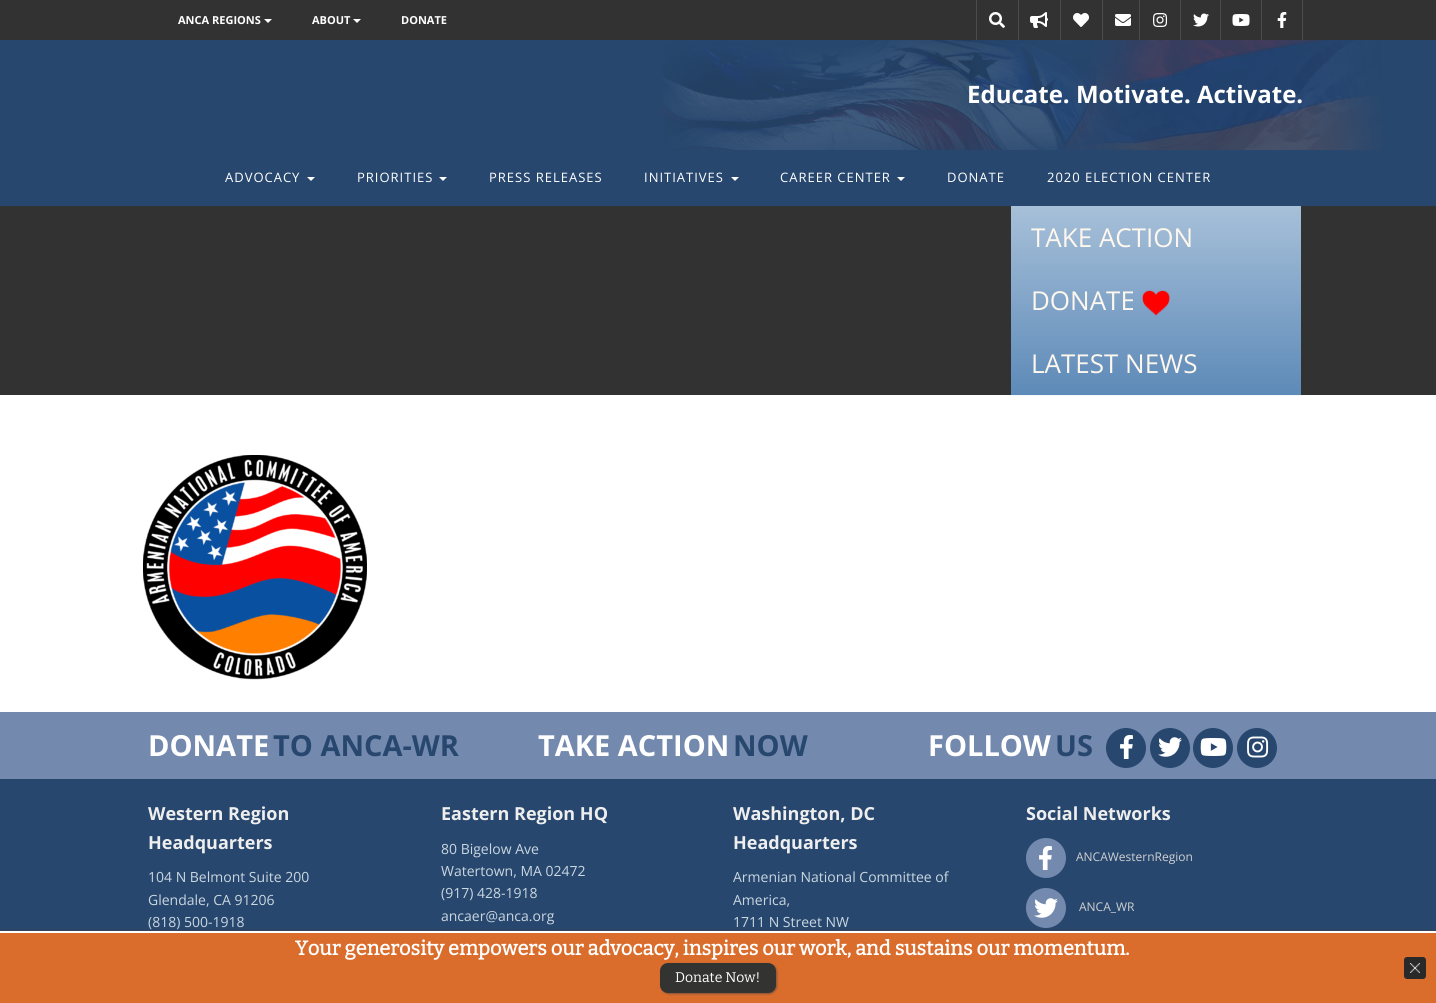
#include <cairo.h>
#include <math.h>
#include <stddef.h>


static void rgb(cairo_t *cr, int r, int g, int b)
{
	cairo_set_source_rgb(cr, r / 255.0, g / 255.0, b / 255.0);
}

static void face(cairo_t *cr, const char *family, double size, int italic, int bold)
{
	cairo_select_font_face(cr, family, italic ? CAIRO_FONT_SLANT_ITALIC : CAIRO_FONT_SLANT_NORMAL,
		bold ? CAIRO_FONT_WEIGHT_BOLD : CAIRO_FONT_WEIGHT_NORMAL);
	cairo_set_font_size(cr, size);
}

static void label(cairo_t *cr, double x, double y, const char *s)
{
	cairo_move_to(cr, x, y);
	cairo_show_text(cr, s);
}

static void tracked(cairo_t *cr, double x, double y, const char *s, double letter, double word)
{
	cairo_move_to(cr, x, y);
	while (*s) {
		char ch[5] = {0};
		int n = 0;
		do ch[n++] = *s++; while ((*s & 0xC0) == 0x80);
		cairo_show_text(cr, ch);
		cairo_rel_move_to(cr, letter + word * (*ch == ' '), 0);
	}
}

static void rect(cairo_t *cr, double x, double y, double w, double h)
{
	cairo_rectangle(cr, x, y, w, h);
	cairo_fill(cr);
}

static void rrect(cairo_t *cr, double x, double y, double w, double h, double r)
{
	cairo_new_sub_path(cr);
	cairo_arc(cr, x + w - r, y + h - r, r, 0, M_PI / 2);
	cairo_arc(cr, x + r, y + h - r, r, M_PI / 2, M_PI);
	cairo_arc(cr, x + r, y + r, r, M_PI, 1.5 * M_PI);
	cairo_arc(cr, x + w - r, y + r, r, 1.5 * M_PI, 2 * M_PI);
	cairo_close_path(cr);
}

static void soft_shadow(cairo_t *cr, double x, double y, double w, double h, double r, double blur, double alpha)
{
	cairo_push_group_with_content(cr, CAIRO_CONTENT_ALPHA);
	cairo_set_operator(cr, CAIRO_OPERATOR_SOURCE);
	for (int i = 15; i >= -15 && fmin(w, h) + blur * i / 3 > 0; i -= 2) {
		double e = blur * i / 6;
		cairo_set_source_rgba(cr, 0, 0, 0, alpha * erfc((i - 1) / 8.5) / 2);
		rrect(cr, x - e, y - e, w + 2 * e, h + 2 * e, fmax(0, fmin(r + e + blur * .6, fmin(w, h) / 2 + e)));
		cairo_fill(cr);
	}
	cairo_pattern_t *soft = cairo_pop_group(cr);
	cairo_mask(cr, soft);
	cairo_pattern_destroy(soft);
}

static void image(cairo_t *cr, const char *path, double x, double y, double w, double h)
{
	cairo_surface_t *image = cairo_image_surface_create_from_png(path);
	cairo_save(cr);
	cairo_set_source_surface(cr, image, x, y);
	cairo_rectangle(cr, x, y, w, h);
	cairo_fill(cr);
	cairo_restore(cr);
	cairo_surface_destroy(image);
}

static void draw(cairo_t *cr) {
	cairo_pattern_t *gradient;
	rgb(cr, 255, 255, 255);
	cairo_paint(cr);
	rgb(cr, 50, 50, 50);
	rect(cr, 0, 0, 1436, 40);
	face(cr, "Open Sans", 11, 0, 1);
	rgb(cr, 255, 255, 255);
	label(cr, 178, 24, "ANCA REGIONS");
	cairo_new_path(cr);
	cairo_move_to(cr, 264, 19);
	cairo_line_to(cr, 272, 19);
	cairo_line_to(cr, 268, 23);
	cairo_close_path(cr);
	cairo_fill(cr);
	label(cr, 312, 24, "ABOUT");
	cairo_new_path(cr);
	cairo_move_to(cr, 353, 19);
	cairo_line_to(cr, 361, 19);
	cairo_line_to(cr, 357, 23);
	cairo_close_path(cr);
	cairo_fill(cr);
	label(cr, 401, 24, "DONATE");
	rgb(cr, 76, 76, 76);
	rect(cr, 976, 0, 1, 40);
	image(cr, "image0.png", 989, 12, 16, 16);
	rect(cr, 1018, 0, 1, 40);
	image(cr, "image1.png", 1030, 12, 18, 16);
	rect(cr, 1060, 0, 1, 40);
	image(cr, "image2.png", 1073, 13, 16, 14);
	rect(cr, 1102, 0, 1, 40);
	image(cr, "image3.png", 1115, 14, 16, 12);
	rect(cr, 1139, 0, 1, 40);
	image(cr, "image4.png", 1153, 13, 15, 14);
	rect(cr, 1180, 0, 1, 40);
	image(cr, "image5.png", 1193, 13, 16, 14);
	rect(cr, 1220, 0, 1, 40);
	image(cr, "image6.png", 1232, 14, 18, 12);
	rect(cr, 1302, 0, 1, 40);
	rect(cr, 1261, 0, 1, 40);
	image(cr, "image7.png", 1277, 12, 10, 16);
	rgb(cr, 39, 71, 110);
	rect(cr, 0, 40, 1436, 166);
	image(cr, "image8.png", 663, 40, 719, 110);
	face(cr, "Open Sans", 24, 0, 1);
	rgb(cr, 255, 255, 255);
	label(cr, 967, 103, "Educate. Motivate. Activate.");
	face(cr, "Open Sans", 13, 0, 0);
	tracked(cr, 225, 182, "ADVOCACY", 1, 0);
	cairo_new_path(cr);
	cairo_move_to(cr, 307, 177);
	cairo_line_to(cr, 315, 177);
	cairo_line_to(cr, 311, 181);
	cairo_close_path(cr);
	cairo_fill(cr);
	tracked(cr, 357, 182, "PRIORITIES", 1, 0);
	cairo_new_path(cr);
	cairo_move_to(cr, 439, 177);
	cairo_line_to(cr, 447, 177);
	cairo_line_to(cr, 443, 181);
	cairo_close_path(cr);
	cairo_fill(cr);
	tracked(cr, 489, 182, "PRESS RELEASES", 1, 0);
	tracked(cr, 644, 182, "INITIATIVES", 1, 0);
	cairo_new_path(cr);
	cairo_move_to(cr, 731, 177);
	cairo_line_to(cr, 739, 177);
	cairo_line_to(cr, 735, 181);
	cairo_close_path(cr);
	cairo_fill(cr);
	tracked(cr, 780, 182, "CAREER CENTER", 1, 0);
	cairo_new_path(cr);
	cairo_move_to(cr, 897, 177);
	cairo_line_to(cr, 905, 177);
	cairo_line_to(cr, 901, 181);
	cairo_close_path(cr);
	cairo_fill(cr);
	tracked(cr, 947, 182, "DONATE", 1, 0);
	tracked(cr, 1047, 182, "2020 ELECTION CENTER", 1, 0);
	rgb(cr, 50, 50, 50);
	rect(cr, 0, 206, 1436, 189);
	gradient = cairo_pattern_create_linear(1156, 206, 1156, 395);
	cairo_pattern_add_color_stop_rgba(gradient, 0, 0.655, 0.753, 0.851, 1);
	cairo_pattern_add_color_stop_rgba(gradient, 1, 0.365, 0.541, 0.722, 1);
	cairo_set_source(cr, gradient);
	cairo_pattern_destroy(gradient);
	rect(cr, 1011, 206, 290, 189);
	face(cr, "Open Sans", 26, 0, 0);
	rgb(cr, 253, 247, 237);
	label(cr, 1031, 247, "TAKE ACTION");
	label(cr, 1031, 310, "DONATE");
	image(cr, "image9.png", 1142, 290, 28, 26);
	label(cr, 1031, 373, "LATEST NEWS");
	rgb(cr, 246, 247, 248);
	rect(cr, 1011, 395, 292, 1);
	image(cr, "image10.png", 143, 455, 224, 225);
	rgb(cr, 115, 137, 174);
	rect(cr, 0, 712, 1436, 67);
	face(cr, "Open Sans", 29, 0, 1);
	rgb(cr, 255, 255, 255);
	label(cr, 148, 756, "DONATE");
	rgb(cr, 39, 71, 110);
	label(cr, 273, 756, "TO ANCA-WR");
	rgb(cr, 255, 255, 255);
	label(cr, 538, 756, "TAKE ACTION");
	rgb(cr, 39, 71, 110);
	label(cr, 733, 756, "NOW");
	rgb(cr, 255, 255, 255);
	label(cr, 928, 756, "FOLLOW");
	rgb(cr, 39, 71, 110);
	label(cr, 1055, 756, "US");
	cairo_new_path(cr);
	cairo_arc(cr, 1126, 748, 20, 0, 2 * M_PI);
	cairo_fill(cr);
	image(cr, "image11.png", 1120, 735, 13, 24);
	cairo_arc(cr, 1170, 748, 20, 0, 2 * M_PI);
	cairo_fill(cr);
	image(cr, "image12.png", 1158, 737, 24, 20);
	cairo_arc(cr, 1213, 748, 20, 0, 2 * M_PI);
	cairo_fill(cr);
	image(cr, "image13.png", 1200, 738, 27, 18);
	cairo_arc(cr, 1257, 748, 20, 0, 2 * M_PI);
	cairo_fill(cr);
	image(cr, "image14.png", 1247, 736, 22, 22);
	rect(cr, 0, 779, 1436, 152);
	face(cr, "Open Sans", 18, 0, 1);
	rgb(cr, 238, 238, 238);
	label(cr, 148, 820, "Western Region");
	label(cr, 148, 849, "Headquarters");
	face(cr, "Open Sans", 14, 0, 0);
	rgb(cr, 202, 215, 224);
	label(cr, 148, 882, "104 N Belmont Suite 200");
	label(cr, 148, 905, "Glendale, CA 91206");
	label(cr, 148, 927, "(818) 500-1918");
	face(cr, "Open Sans", 18, 0, 1);
	rgb(cr, 238, 238, 238);
	label(cr, 441, 820, "Eastern Region HQ");
	face(cr, "Open Sans", 14, 0, 0);
	rgb(cr, 202, 215, 224);
	label(cr, 441, 854, "80 Bigelow Ave");
	label(cr, 441, 876, "Watertown, MA 02472");
	label(cr, 441, 898, "(917) 428-1918");
	label(cr, 441, 921, "ancaer@anca.org");
	face(cr, "Open Sans", 18, 0, 1);
	rgb(cr, 238, 238, 238);
	label(cr, 733, 820, "Washington, DC");
	label(cr, 733, 849, "Headquarters");
	face(cr, "Open Sans", 14, 0, 0);
	rgb(cr, 202, 215, 224);
	label(cr, 733, 882, "Armenian National Committee of");
	label(cr, 733, 905, "America,");
	label(cr, 733, 927, "1711 N Street NW");
	face(cr, "Open Sans", 18, 0, 1);
	rgb(cr, 238, 238, 238);
	label(cr, 1026, 820, "Social Networks");
	rgb(cr, 115, 137, 174);
	cairo_new_path(cr);
	cairo_arc(cr, 1046, 858, 20, 0, 2 * M_PI);
	cairo_fill(cr);
	image(cr, "image15.png", 1039, 846, 13, 24);
	face(cr, "Open Sans", 12, 0, 0);
	rgb(cr, 209, 209, 209);
	label(cr, 1076, 861, "ANCAWesternRegion");
	rgb(cr, 115, 137, 174);
	cairo_new_path(cr);
	cairo_arc(cr, 1046, 908, 20, 0, 2 * M_PI);
	cairo_fill(cr);
	image(cr, "image16.png", 1034, 898, 24, 20);
	rgb(cr, 209, 209, 209);
	label(cr, 1079, 911, "ANCA_WR");
	rgb(cr, 66, 66, 66);
	soft_shadow(cr, -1, 930, 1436, 72, 0, 1, 0.6);
	rgb(cr, 255, 255, 255);
	rect(cr, 0, 931, 1436, 2);
	rgb(cr, 219, 109, 44);
	rect(cr, 0, 933, 1436, 70);
	face(cr, "Bitter", 20, 0, 1);
	rgb(cr, 255, 255, 255);
	label(cr, 295, 955, "Your generosity empowers our advocacy, inspires our work, and sustains our momentum.");
	rgb(cr, 66, 66, 66);
	soft_shadow(cr, 661, 964, 116, 30, 8, 1, 0.6);
	rgb(cr, 51, 51, 50);
	rrect(cr, 660, 963, 116, 30, 8);
	cairo_fill(cr);
	face(cr, "Bitter Thin", 14, 0, 0);
	rgb(cr, 255, 255, 255);
	label(cr, 675, 982, "Donate Now!");
	rgb(cr, 41, 41, 41);
	rrect(cr, 1404, 957, 22, 22, 3);
	cairo_fill(cr);
	image(cr, "image17.png", 1410, 963, 10, 10);
}

int main(void) {
	cairo_surface_t *surface = cairo_image_surface_create(CAIRO_FORMAT_RGB24, 1436, 1003);
	cairo_t *cr = cairo_create(surface);
	cairo_font_options_t *options = cairo_font_options_create();
	cairo_font_options_set_hint_metrics(options, CAIRO_HINT_METRICS_OFF);
	cairo_font_options_set_hint_style(options, CAIRO_HINT_STYLE_NONE);
	cairo_set_font_options(cr, options);
	cairo_set_miter_limit(cr, 4);
	draw(cr);
	cairo_surface_write_to_png(surface, "render.png");
	cairo_font_options_destroy(options);
	cairo_destroy(cr);
	cairo_surface_destroy(surface);
	return 0;
}
